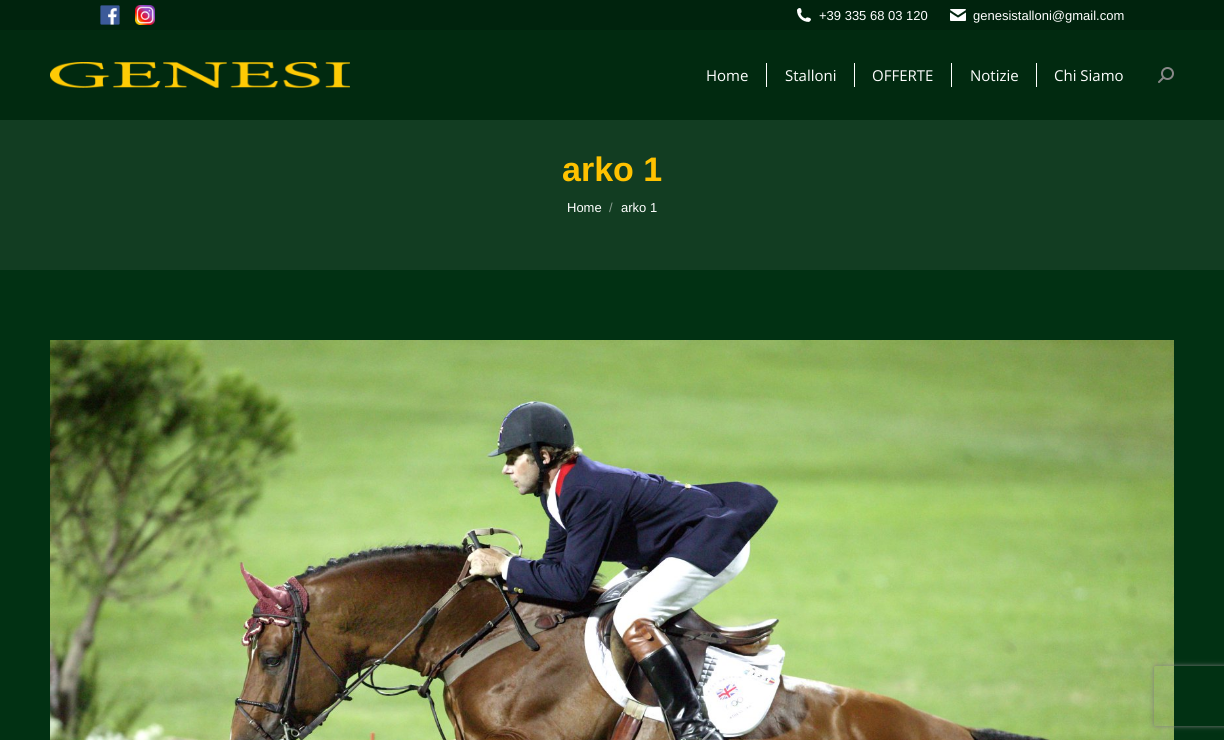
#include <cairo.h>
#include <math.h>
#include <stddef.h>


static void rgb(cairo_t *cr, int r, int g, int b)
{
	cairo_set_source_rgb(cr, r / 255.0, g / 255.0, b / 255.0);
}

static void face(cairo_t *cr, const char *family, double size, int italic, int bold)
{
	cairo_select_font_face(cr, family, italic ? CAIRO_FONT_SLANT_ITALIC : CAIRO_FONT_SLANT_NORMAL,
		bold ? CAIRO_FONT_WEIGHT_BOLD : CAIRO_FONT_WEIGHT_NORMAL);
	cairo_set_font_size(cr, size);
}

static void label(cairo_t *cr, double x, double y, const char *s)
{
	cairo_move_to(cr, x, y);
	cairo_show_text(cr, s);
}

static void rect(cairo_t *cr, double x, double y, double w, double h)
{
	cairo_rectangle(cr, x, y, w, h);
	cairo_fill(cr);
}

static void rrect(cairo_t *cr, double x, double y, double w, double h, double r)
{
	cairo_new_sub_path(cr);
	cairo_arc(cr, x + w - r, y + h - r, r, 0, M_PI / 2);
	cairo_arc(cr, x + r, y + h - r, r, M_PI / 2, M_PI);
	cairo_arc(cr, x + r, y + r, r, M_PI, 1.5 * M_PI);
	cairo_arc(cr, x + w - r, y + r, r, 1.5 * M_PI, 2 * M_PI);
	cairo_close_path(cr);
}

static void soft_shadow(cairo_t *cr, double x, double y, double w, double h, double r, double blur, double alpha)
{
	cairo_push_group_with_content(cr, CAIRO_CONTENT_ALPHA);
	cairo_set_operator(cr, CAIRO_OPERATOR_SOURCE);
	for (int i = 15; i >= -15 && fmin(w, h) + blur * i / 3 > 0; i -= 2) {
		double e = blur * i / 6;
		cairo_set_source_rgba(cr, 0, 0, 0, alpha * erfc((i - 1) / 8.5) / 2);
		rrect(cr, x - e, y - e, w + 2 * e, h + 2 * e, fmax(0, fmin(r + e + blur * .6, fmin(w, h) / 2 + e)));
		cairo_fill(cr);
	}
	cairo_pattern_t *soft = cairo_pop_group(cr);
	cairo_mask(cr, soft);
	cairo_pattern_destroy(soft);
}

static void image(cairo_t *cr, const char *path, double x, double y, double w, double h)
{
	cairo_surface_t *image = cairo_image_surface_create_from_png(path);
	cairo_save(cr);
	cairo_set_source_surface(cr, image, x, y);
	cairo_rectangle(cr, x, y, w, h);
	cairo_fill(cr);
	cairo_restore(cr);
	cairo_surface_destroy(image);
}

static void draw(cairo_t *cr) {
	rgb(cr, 1, 49, 19);
	cairo_paint(cr);
	rgb(cr, 1, 42, 16);
	rect(cr, 0, 30, 1224, 90);
	rgb(cr, 0, 35, 13);
	rect(cr, 0, 0, 1224, 30);
	image(cr, "image0.png", 100, 5, 20, 20);
	image(cr, "image1.png", 135, 5, 20, 20);
	image(cr, "image2.png", 797, 8, 14, 14);
	face(cr, "Liberation Sans", 13, 0, 0);
	rgb(cr, 255, 255, 255);
	label(cr, 819, 20, "+39 335 68 03 120");
	image(cr, "image3.png", 950, 9, 16, 12);
	label(cr, 973, 20, "genesistalloni@gmail.com");
	image(cr, "image4.png", 50, 62, 300, 26);
	face(cr, "Open Sans", 15, 0, 0);
	label(cr, 706, 81, "Home");
	rect(cr, 766, 63, 1, 24);
	label(cr, 785, 81, "Stalloni");
	rect(cr, 854, 63, 1, 24);
	label(cr, 872, 81, "OFFERTE");
	rect(cr, 951, 63, 1, 24);
	label(cr, 970, 81, "Notizie");
	rect(cr, 1036, 63, 1, 24);
	label(cr, 1054, 81, "Chi Siamo");
	image(cr, "image5.png", 1158, 67, 16, 16);
	rgb(cr, 18, 61, 34);
	rect(cr, 0, 120, 1224, 150);
	face(cr, "Liberation Sans", 34, 0, 1);
	rgb(cr, 255, 194, 0);
	label(cr, 562, 181, "arko 1");
	face(cr, "Liberation Sans", 13, 0, 0);
	rgb(cr, 255, 255, 255);
	label(cr, 567, 212, "Home");
	rgb(cr, 137, 158, 145);
	label(cr, 609, 212, "/");
	rgb(cr, 255, 255, 255);
	label(cr, 621, 212, "arko 1");
	image(cr, "image6.png", 50, 340, 1124, 400);
	cairo_save(cr);
	cairo_set_fill_rule(cr, CAIRO_FILL_RULE_EVEN_ODD);
	cairo_new_path(cr);
	cairo_move_to(cr, 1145, 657);
	cairo_line_to(cr, 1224, 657);
	cairo_line_to(cr, 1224, 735);
	cairo_line_to(cr, 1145, 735);
	cairo_close_path(cr);
	cairo_move_to(cr, 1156, 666);
	cairo_line_to(cr, 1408, 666);
	cairo_curve_to(cr, 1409, 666, 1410, 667, 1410, 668);
	cairo_line_to(cr, 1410, 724);
	cairo_curve_to(cr, 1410, 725, 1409, 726, 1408, 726);
	cairo_line_to(cr, 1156, 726);
	cairo_curve_to(cr, 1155, 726, 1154, 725, 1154, 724);
	cairo_line_to(cr, 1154, 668);
	cairo_curve_to(cr, 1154, 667, 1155, 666, 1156, 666);
	cairo_close_path(cr);
	cairo_clip(cr);
	rgb(cr, 128, 128, 128);
	soft_shadow(cr, 1154, 666, 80, 60, 2, 2.5, 1);
	cairo_restore(cr);
}

int main(void) {
	cairo_surface_t *surface = cairo_image_surface_create(CAIRO_FORMAT_RGB24, 1224, 740);
	cairo_t *cr = cairo_create(surface);
	cairo_font_options_t *options = cairo_font_options_create();
	cairo_font_options_set_hint_metrics(options, CAIRO_HINT_METRICS_OFF);
	cairo_font_options_set_hint_style(options, CAIRO_HINT_STYLE_NONE);
	cairo_set_font_options(cr, options);
	cairo_set_miter_limit(cr, 4);
	draw(cr);
	cairo_surface_write_to_png(surface, "render.png");
	cairo_font_options_destroy(options);
	cairo_destroy(cr);
	cairo_surface_destroy(surface);
	return 0;
}
